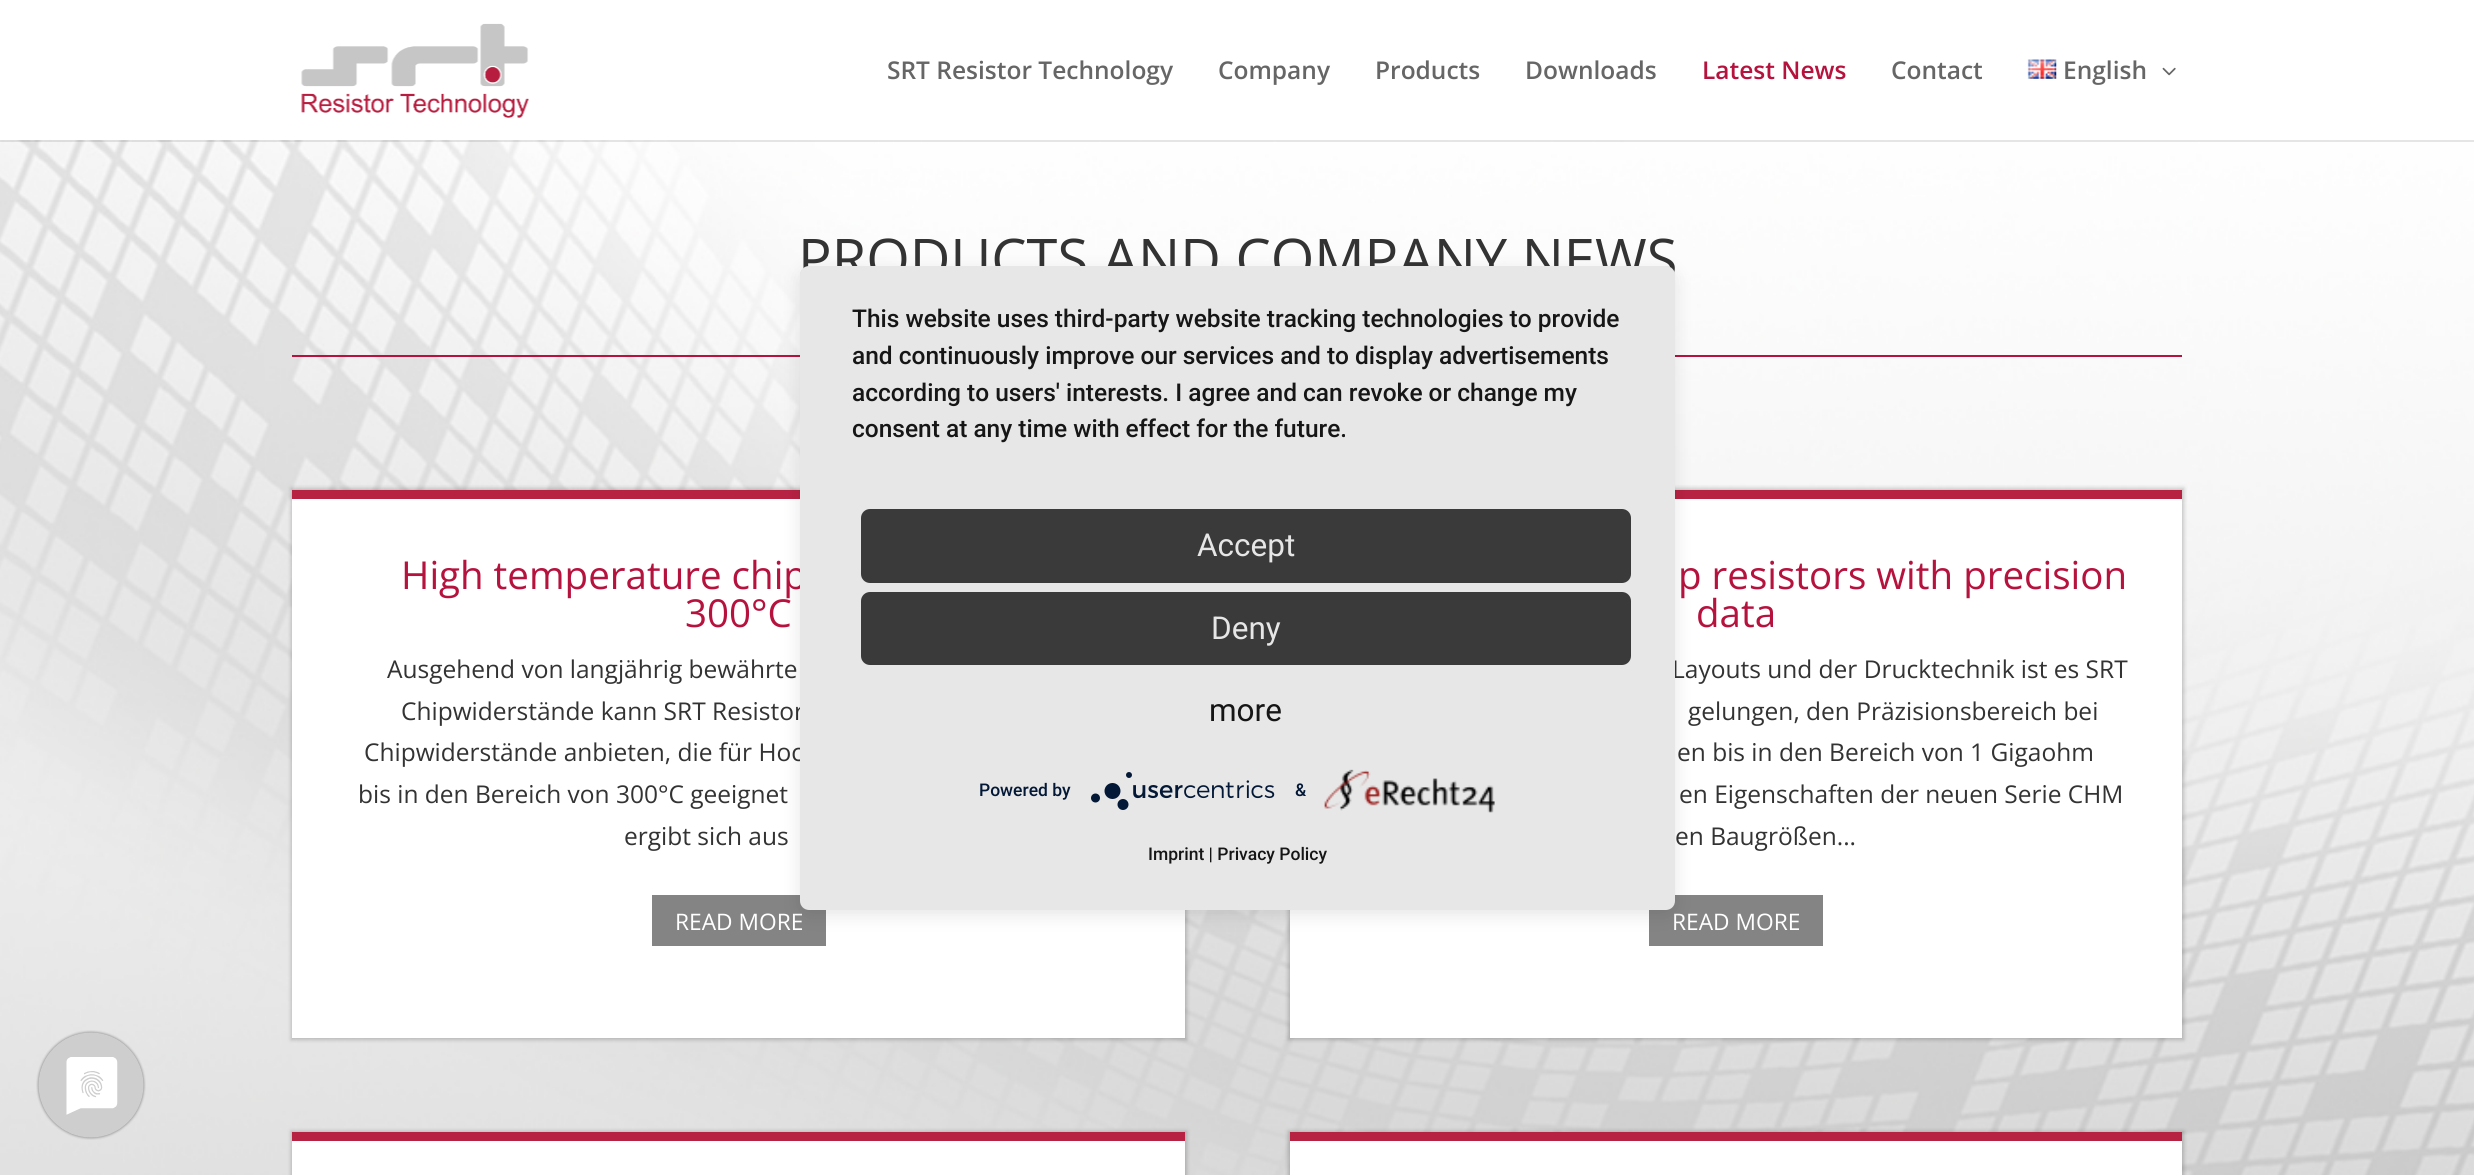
#include <cairo.h>
#include <math.h>
#include <stddef.h>


static void rgb(cairo_t *cr, int r, int g, int b)
{
	cairo_set_source_rgb(cr, r / 255.0, g / 255.0, b / 255.0);
}

static void face(cairo_t *cr, const char *family, double size, int italic, int bold)
{
	cairo_select_font_face(cr, family, italic ? CAIRO_FONT_SLANT_ITALIC : CAIRO_FONT_SLANT_NORMAL,
		bold ? CAIRO_FONT_WEIGHT_BOLD : CAIRO_FONT_WEIGHT_NORMAL);
	cairo_set_font_size(cr, size);
}

static void label(cairo_t *cr, double x, double y, const char *s)
{
	cairo_move_to(cr, x, y);
	cairo_show_text(cr, s);
}

static void rect(cairo_t *cr, double x, double y, double w, double h)
{
	cairo_rectangle(cr, x, y, w, h);
	cairo_fill(cr);
}

static void rrect(cairo_t *cr, double x, double y, double w, double h, double r)
{
	cairo_new_sub_path(cr);
	cairo_arc(cr, x + w - r, y + h - r, r, 0, M_PI / 2);
	cairo_arc(cr, x + r, y + h - r, r, M_PI / 2, M_PI);
	cairo_arc(cr, x + r, y + r, r, M_PI, 1.5 * M_PI);
	cairo_arc(cr, x + w - r, y + r, r, 1.5 * M_PI, 2 * M_PI);
	cairo_close_path(cr);
}

static void soft_shadow(cairo_t *cr, double x, double y, double w, double h, double r, double blur, double alpha)
{
	cairo_push_group_with_content(cr, CAIRO_CONTENT_ALPHA);
	cairo_set_operator(cr, CAIRO_OPERATOR_SOURCE);
	for (int i = 15; i >= -15 && fmin(w, h) + blur * i / 3 > 0; i -= 2) {
		double e = blur * i / 6;
		cairo_set_source_rgba(cr, 0, 0, 0, alpha * erfc((i - 1) / 8.5) / 2);
		rrect(cr, x - e, y - e, w + 2 * e, h + 2 * e, fmax(0, fmin(r + e + blur * .6, fmin(w, h) / 2 + e)));
		cairo_fill(cr);
	}
	cairo_pattern_t *soft = cairo_pop_group(cr);
	cairo_mask(cr, soft);
	cairo_pattern_destroy(soft);
}

static void image(cairo_t *cr, const char *path, double x, double y, double w, double h)
{
	cairo_surface_t *image = cairo_image_surface_create_from_png(path);
	cairo_save(cr);
	cairo_set_source_surface(cr, image, x, y);
	cairo_rectangle(cr, x, y, w, h);
	cairo_fill(cr);
	cairo_restore(cr);
	cairo_surface_destroy(image);
}

static void draw(cairo_t *cr) {
	rgb(cr, 255, 255, 255);
	cairo_paint(cr);
	image(cr, "image3.png", 0, 140, 2474, 1035);
	cairo_set_source_rgba(cr, 0, 0, 0, 0.1);
	cairo_new_path(cr);
	cairo_move_to(cr, 0, 140);
	cairo_line_to(cr, 0, 142);
	cairo_line_to(cr, 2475, 142);
	cairo_line_to(cr, 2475, 2);
	cairo_line_to(cr, 2474, 2);
	cairo_line_to(cr, 2474, 140);
	cairo_close_path(cr);
	cairo_fill(cr);
	image(cr, "image0.png", 301, 23, 228, 95);
	face(cr, "Open Sans SemiBold", 24.5, 0, 0);
	rgb(cr, 102, 102, 102);
	label(cr, 887, 79, "SRT Resistor Technology");
	label(cr, 1218, 79, "Company");
	label(cr, 1375, 79, "Products");
	label(cr, 1525, 79, "Downloads");
	rgb(cr, 182, 18, 62);
	label(cr, 1702, 79, "Latest News");
	rgb(cr, 102, 102, 102);
	label(cr, 1891, 79, "Contact");
	image(cr, "image1.png", 2027, 59, 30, 20);
	label(cr, 2063, 79, "English");
	image(cr, "image2.png", 2162, 67, 14, 9);
	face(cr, "Open Sans", 56, 0, 0);
	rgb(cr, 51, 51, 51);
	label(cr, 798, 279, "PRODUCTS AND COMPANY NEWS");
	rgb(cr, 182, 18, 62);
	rect(cr, 292, 355, 1890, 2);
	rgb(cr, 0, 0, 0);
	soft_shadow(cr, 291, 488, 896, 552, 0, 2, 0.2);
	rgb(cr, 255, 255, 255);
	rect(cr, 292, 499, 893, 539);
	rgb(cr, 183, 34, 67);
	rect(cr, 292, 490, 508, 9);
	face(cr, "Open Sans", 38.5, 0, 0);
	rgb(cr, 182, 18, 62);
	label(cr, 401, 589, "High temperature chip");
	label(cr, 685, 627, "300°C");
	face(cr, "Open Sans", 24.5, 0, 0);
	rgb(cr, 51, 51, 51);
	label(cr, 387, 678, "Ausgehend von langjährig bewährte");
	label(cr, 401, 720, "Chipwiderstände kann SRT Resistor");
	label(cr, 364, 761, "Chipwiderstände anbieten, die für Hoc");
	label(cr, 358, 803, "bis in den Bereich von 300°C geeignet");
	label(cr, 624, 845, "ergibt sich aus");
	rgb(cr, 132, 132, 132);
	cairo_rectangle(cr, 650, 893, 178, 55);
	cairo_fill_preserve(cr);
	rgb(cr, 255, 255, 255);
	cairo_set_line_width(cr, 4);
	cairo_stroke(cr);
	face(cr, "Open Sans", 22.75, 0, 0);
	label(cr, 675, 930, "READ MORE");
	rgb(cr, 0, 0, 0);
	soft_shadow(cr, 1288, 488, 896, 552, 0, 2, 0.2);
	rgb(cr, 255, 255, 255);
	rect(cr, 1290, 499, 892, 539);
	rgb(cr, 183, 34, 67);
	rect(cr, 1675, 490, 507, 9);
	face(cr, "Open Sans", 38.5, 0, 0);
	rgb(cr, 182, 18, 62);
	label(cr, 1678, 589, "p resistors with precision");
	label(cr, 1696, 627, "data");
	face(cr, "Open Sans", 24.5, 0, 0);
	rgb(cr, 51, 51, 51);
	label(cr, 1672, 678, "Layouts und der Drucktechnik ist es SRT");
	label(cr, 1688, 720, "gelungen, den Präzisionsbereich bei");
	label(cr, 1677, 761, "en bis in den Bereich von 1 Gigaohm");
	label(cr, 1679, 803, "en Eigenschaften der neuen Serie CHM");
	label(cr, 1675, 845, "en Baugrößen...");
	rgb(cr, 132, 132, 132);
	cairo_rectangle(cr, 1647, 893, 178, 55);
	cairo_fill_preserve(cr);
	rgb(cr, 255, 255, 255);
	cairo_stroke(cr);
	face(cr, "Open Sans", 22.75, 0, 0);
	label(cr, 1672, 930, "READ MORE");
	rgb(cr, 0, 0, 0);
	soft_shadow(cr, 291, 1131, 896, 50, 0, 2, 0.2);
	rgb(cr, 255, 255, 255);
	rect(cr, 292, 1141, 893, 34);
	rgb(cr, 183, 34, 67);
	rect(cr, 292, 1132, 893, 9);
	rgb(cr, 0, 0, 0);
	soft_shadow(cr, 1288, 1131, 896, 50, 0, 2, 0.2);
	rgb(cr, 255, 255, 255);
	rect(cr, 1290, 1141, 892, 34);
	rgb(cr, 183, 34, 67);
	rect(cr, 1290, 1132, 892, 9);
	rgb(cr, 0, 0, 0);
	soft_shadow(cr, 800, 271, 875, 644, 9, 9, 0.1);
	cairo_save(cr);
	rrect(cr, 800, 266, 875, 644, 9);
	cairo_clip(cr);
	soft_shadow(cr, 800, 277, 875, 644, 0, 31.5, 0.3);
	cairo_restore(cr);
	rgb(cr, 231, 231, 231);
	rrect(cr, 800, 266, 875, 644, 9);
	cairo_fill(cr);
	face(cr, "Roboto Medium", 24.5, 0, 0);
	rgb(cr, 22, 22, 22);
	label(cr, 852, 327, "This website uses third-party website tracking technologies to provide");
	label(cr, 852, 364, "and continuously improve our services and to display advertisements");
	label(cr, 852, 401, "according to users' interests. I agree and can revoke or change my");
	label(cr, 852, 437, "consent at any time with effect for the future.");
	rgb(cr, 58, 58, 58);
	rrect(cr, 861, 509, 770, 74, 9);
	cairo_fill(cr);
	face(cr, "Roboto", 31.5, 0, 0);
	rgb(cr, 230, 230, 230);
	label(cr, 1197, 556, "Accept");
	rgb(cr, 58, 58, 58);
	rrect(cr, 861, 592, 770, 73, 9);
	cairo_fill(cr);
	rgb(cr, 230, 230, 230);
	label(cr, 1211, 639, "Deny");
	rgb(cr, 22, 22, 22);
	label(cr, 1209, 721, "more");
	face(cr, "Roboto Medium", 17.5, 0, 0);
	rgb(cr, 2, 24, 54);
	label(cr, 979, 796, "Powered by");
	image(cr, "image4.png", 1091, 772, 184, 38);
	label(cr, 1295, 796, "&");
	image(cr, "image5.png", 1324, 769, 171, 44);
	rgb(cr, 22, 22, 22);
	label(cr, 1148, 860, "Imprint | Privacy Policy");
	image(cr, "image6.png", 36, 1030, 110, 110);
}

int main(void) {
	cairo_surface_t *surface = cairo_image_surface_create(CAIRO_FORMAT_RGB24, 2474, 1175);
	cairo_t *cr = cairo_create(surface);
	cairo_font_options_t *options = cairo_font_options_create();
	cairo_font_options_set_hint_metrics(options, CAIRO_HINT_METRICS_OFF);
	cairo_font_options_set_hint_style(options, CAIRO_HINT_STYLE_NONE);
	cairo_set_font_options(cr, options);
	cairo_set_miter_limit(cr, 4);
	draw(cr);
	cairo_surface_write_to_png(surface, "render.png");
	cairo_font_options_destroy(options);
	cairo_destroy(cr);
	cairo_surface_destroy(surface);
	return 0;
}
